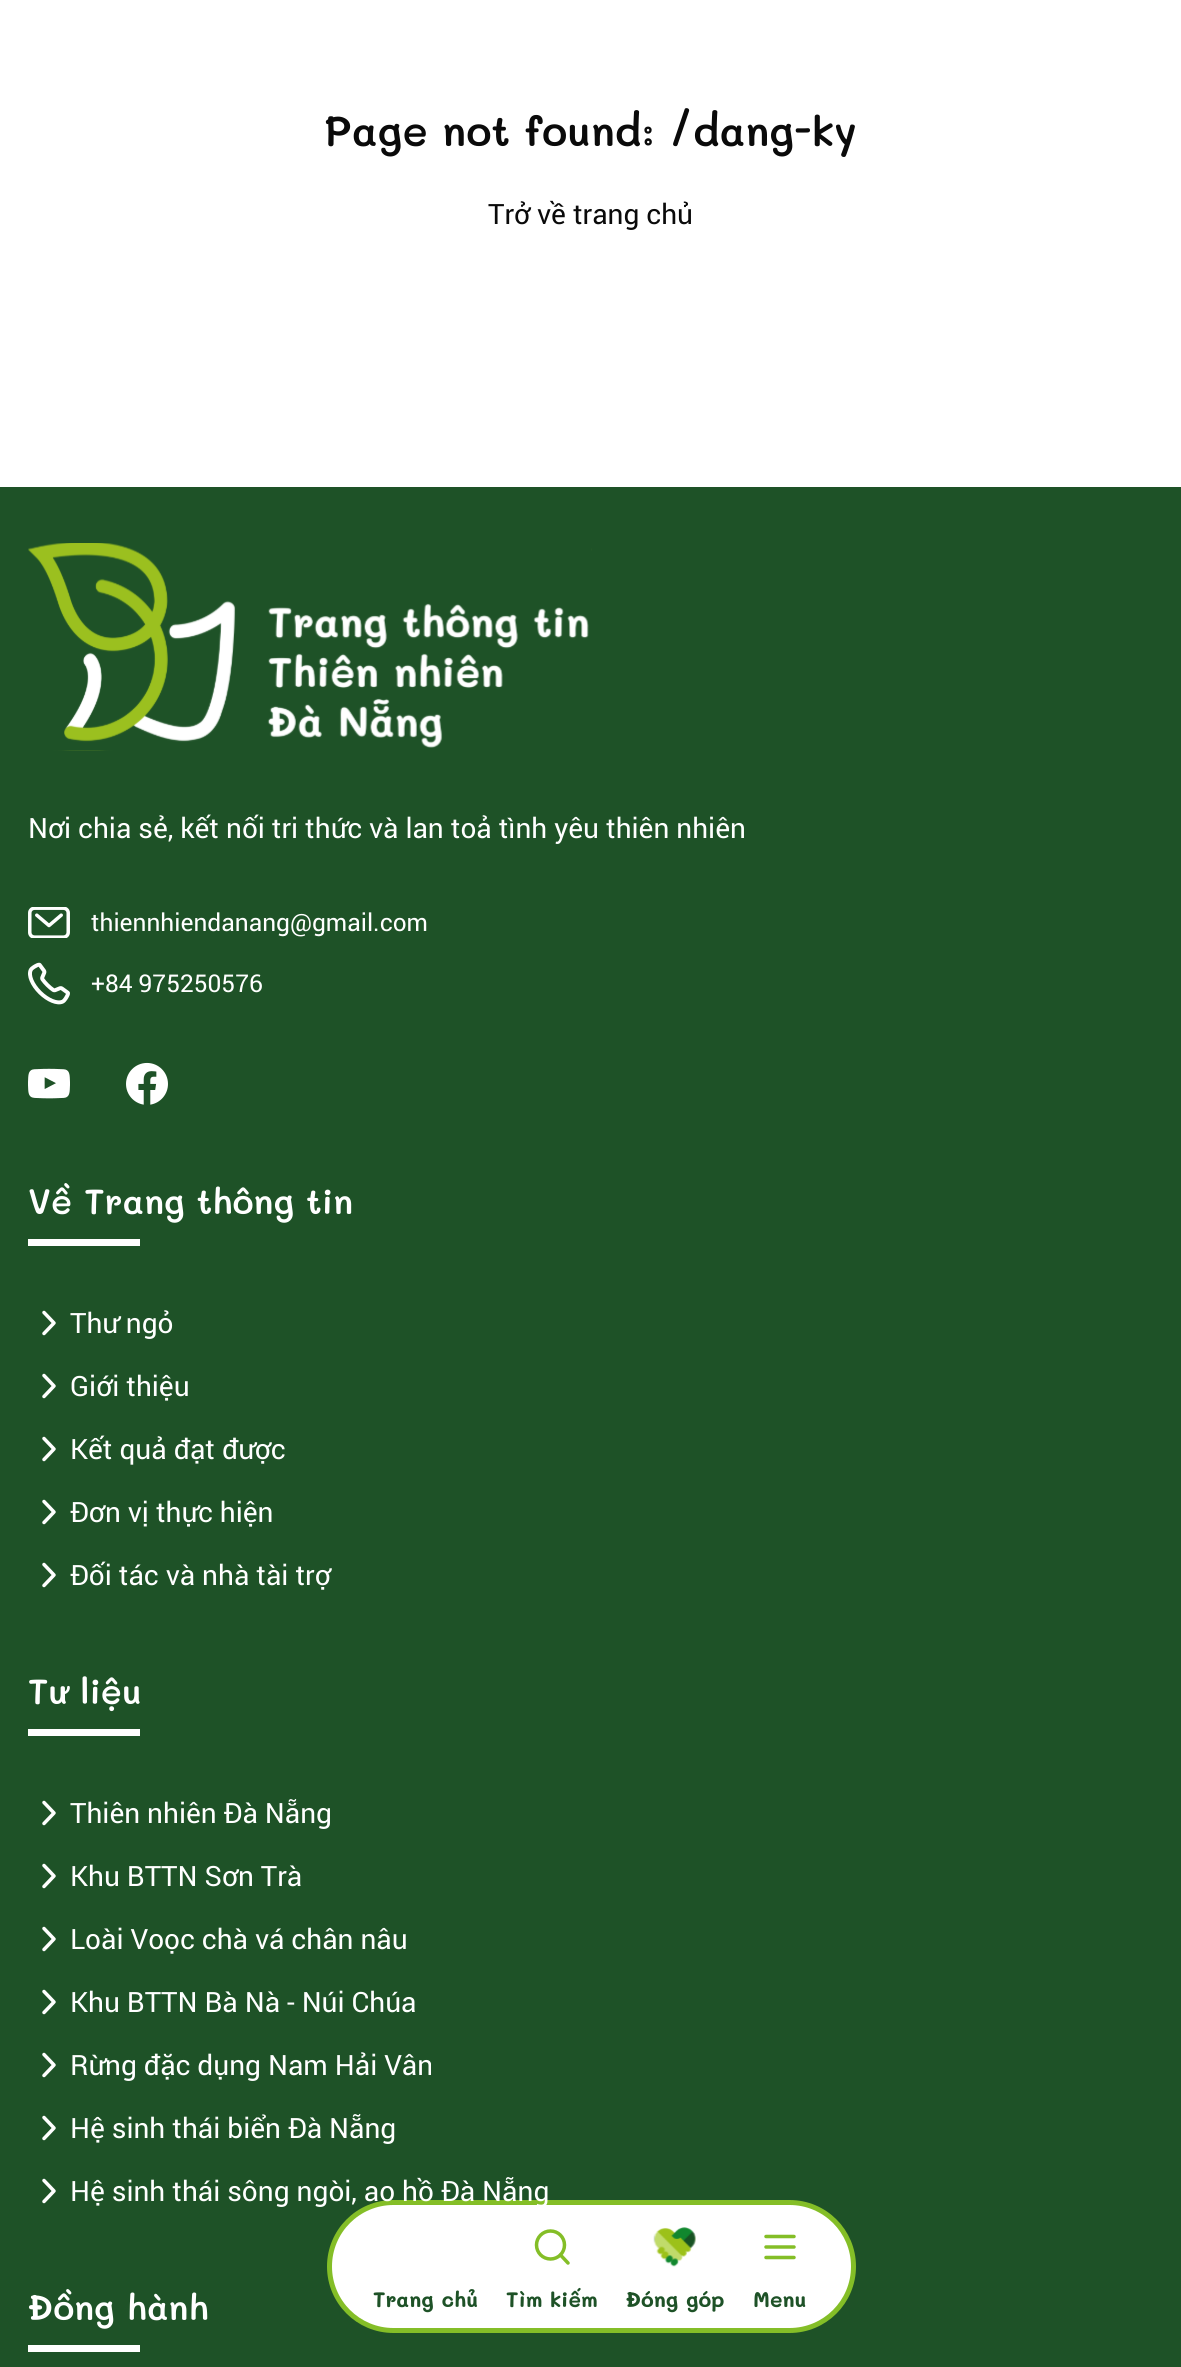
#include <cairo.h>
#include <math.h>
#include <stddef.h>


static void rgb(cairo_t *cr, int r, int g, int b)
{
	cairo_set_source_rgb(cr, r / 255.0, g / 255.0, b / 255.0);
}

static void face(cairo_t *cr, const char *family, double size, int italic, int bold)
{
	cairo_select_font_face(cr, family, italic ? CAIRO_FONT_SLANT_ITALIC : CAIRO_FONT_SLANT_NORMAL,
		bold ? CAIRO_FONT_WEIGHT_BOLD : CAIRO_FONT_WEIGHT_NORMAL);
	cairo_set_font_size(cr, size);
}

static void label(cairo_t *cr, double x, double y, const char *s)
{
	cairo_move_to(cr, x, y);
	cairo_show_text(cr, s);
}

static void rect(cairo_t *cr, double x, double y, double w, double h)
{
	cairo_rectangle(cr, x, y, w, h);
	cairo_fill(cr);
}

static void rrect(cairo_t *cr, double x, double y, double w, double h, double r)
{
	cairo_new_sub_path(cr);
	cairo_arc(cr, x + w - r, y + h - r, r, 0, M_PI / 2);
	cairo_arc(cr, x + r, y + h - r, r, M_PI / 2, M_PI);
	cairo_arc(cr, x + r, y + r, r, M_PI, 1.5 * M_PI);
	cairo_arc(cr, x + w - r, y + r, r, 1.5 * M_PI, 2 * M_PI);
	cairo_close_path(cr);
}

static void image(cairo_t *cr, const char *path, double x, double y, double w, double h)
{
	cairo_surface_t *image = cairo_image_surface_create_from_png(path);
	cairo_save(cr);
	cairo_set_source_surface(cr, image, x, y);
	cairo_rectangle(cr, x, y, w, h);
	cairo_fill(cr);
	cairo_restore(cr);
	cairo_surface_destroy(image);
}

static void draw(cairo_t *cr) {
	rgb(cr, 255, 255, 255);
	cairo_paint(cr);
	face(cr, "Mali SemiBold", 42, 0, 0);
	rgb(cr, 10, 10, 10);
	label(cr, 324, 146, "Page not found: /dang-ky");
	face(cr, "Roboto", 28, 0, 0);
	label(cr, 488, 224, "Trở về trang chủ");
	rgb(cr, 30, 82, 39);
	rect(cr, 0, 487, 1181, 1880);
	rgb(cr, 255, 255, 255);
	rrect(cr, 329.5, 2202.5, 524, 128, 64);
	cairo_fill_preserve(cr);
	rgb(cr, 132, 190, 39);
	cairo_set_line_width(cr, 5);
	cairo_stroke(cr);
	face(cr, "Mali", 21, 0, 1);
	rgb(cr, 30, 82, 39);
	label(cr, 373, 2307, "Trang chủ");
	cairo_new_path(cr);
	cairo_arc(cr, 550.5, 2245, 14, 0, 2 * M_PI);
	rgb(cr, 132, 190, 39);
	cairo_set_line_width(cr, 3.5);
	cairo_stroke(cr);
	cairo_new_path(cr);
	cairo_move_to(cr, 568, 2263);
	cairo_line_to(cr, 560.5, 2255);
	cairo_set_line_cap(cr, CAIRO_LINE_CAP_ROUND);
	cairo_set_line_join(cr, CAIRO_LINE_JOIN_ROUND);
	cairo_stroke(cr);
	rgb(cr, 30, 82, 39);
	label(cr, 506, 2307, "Tìm kiếm");
	image(cr, "image0.png", 653, 2227, 43, 40);
	label(cr, 626, 2307, "Đóng góp");
	cairo_new_path(cr);
	cairo_move_to(cr, 766, 2247);
	cairo_line_to(cr, 794, 2247);
	cairo_move_to(cr, 766, 2236.5);
	cairo_line_to(cr, 794, 2236.5);
	cairo_move_to(cr, 766, 2257.5);
	cairo_line_to(cr, 794, 2257.5);
	rgb(cr, 132, 190, 39);
	cairo_stroke(cr);
	rgb(cr, 30, 82, 39);
	label(cr, 753, 2307, "Menu");
	image(cr, "image1.png", 28, 543, 564, 208);
	face(cr, "Roboto", 28, 0, 0);
	rgb(cr, 255, 255, 255);
	label(cr, 28, 838, "Nơi chia sẻ, kết nối tri thức và lan toả tình yêu thiên nhiên");
	image(cr, "image2.png", 28, 907, 42, 31);
	face(cr, "Roboto", 24.5, 0, 0);
	label(cr, 91, 931, "thiennhiendanang@gmail.com");
	image(cr, "image3.png", 28, 962, 42, 43);
	label(cr, 91, 992, "+84 975250576");
	image(cr, "image4.png", 28, 1068, 42, 31);
	image(cr, "image5.png", 126, 1062, 42, 43);
	face(cr, "Mali SemiBold", 35, 0, 0);
	label(cr, 28, 1214, "Về Trang thông tin");
	rect(cr, 28, 1239, 112, 7);
	cairo_new_path(cr);
	cairo_move_to(cr, 44, 1333.5);
	cairo_line_to(cr, 54, 1323);
	cairo_line_to(cr, 44, 1312.5);
	cairo_stroke(cr);
	face(cr, "Roboto", 28, 0, 0);
	label(cr, 70, 1333, "Thư ngỏ");
	cairo_new_path(cr);
	cairo_move_to(cr, 44, 1396.5);
	cairo_line_to(cr, 54, 1386);
	cairo_line_to(cr, 44, 1375.5);
	cairo_stroke(cr);
	label(cr, 70, 1396, "Giới thiệu");
	cairo_new_path(cr);
	cairo_move_to(cr, 44, 1459.5);
	cairo_line_to(cr, 54, 1449);
	cairo_line_to(cr, 44, 1438.5);
	cairo_stroke(cr);
	label(cr, 70, 1459, "Kết quả đạt được");
	cairo_new_path(cr);
	cairo_move_to(cr, 44, 1522.5);
	cairo_line_to(cr, 54, 1512);
	cairo_line_to(cr, 44, 1501.5);
	cairo_stroke(cr);
	label(cr, 70, 1522, "Đơn vị thực hiện");
	cairo_new_path(cr);
	cairo_move_to(cr, 44, 1585.5);
	cairo_line_to(cr, 54, 1575);
	cairo_line_to(cr, 44, 1564.5);
	cairo_stroke(cr);
	label(cr, 70, 1585, "Đối tác và nhà tài trợ");
	face(cr, "Mali SemiBold", 35, 0, 0);
	label(cr, 28, 1704, "Tư liệu");
	rect(cr, 28, 1729, 112, 7);
	cairo_new_path(cr);
	cairo_move_to(cr, 44, 1823.5);
	cairo_line_to(cr, 54, 1813);
	cairo_line_to(cr, 44, 1802.5);
	cairo_stroke(cr);
	face(cr, "Roboto", 28, 0, 0);
	label(cr, 70, 1823, "Thiên nhiên Đà Nẵng");
	cairo_new_path(cr);
	cairo_move_to(cr, 44, 1886.5);
	cairo_line_to(cr, 54, 1876);
	cairo_line_to(cr, 44, 1865.5);
	cairo_stroke(cr);
	label(cr, 70, 1886, "Khu BTTN Sơn Trà");
	cairo_new_path(cr);
	cairo_move_to(cr, 44, 1949.5);
	cairo_line_to(cr, 54, 1939);
	cairo_line_to(cr, 44, 1928.5);
	cairo_stroke(cr);
	label(cr, 70, 1949, "Loài Voọc chà vá chân nâu");
	cairo_new_path(cr);
	cairo_move_to(cr, 44, 2012.5);
	cairo_line_to(cr, 54, 2002);
	cairo_line_to(cr, 44, 1991.5);
	cairo_stroke(cr);
	label(cr, 70, 2012, "Khu BTTN Bà Nà - Núi Chúa");
	cairo_new_path(cr);
	cairo_move_to(cr, 44, 2075.5);
	cairo_line_to(cr, 54, 2065);
	cairo_line_to(cr, 44, 2054.5);
	cairo_stroke(cr);
	label(cr, 70, 2075, "Rừng đặc dụng Nam Hải Vân");
	cairo_new_path(cr);
	cairo_move_to(cr, 44, 2138.5);
	cairo_line_to(cr, 54, 2128);
	cairo_line_to(cr, 44, 2117.5);
	cairo_stroke(cr);
	label(cr, 70, 2138, "Hệ sinh thái biển Đà Nẵng");
	cairo_new_path(cr);
	cairo_move_to(cr, 44, 2201.5);
	cairo_line_to(cr, 54, 2191);
	cairo_line_to(cr, 44, 2180.5);
	cairo_stroke(cr);
	label(cr, 70, 2201, "Hệ sinh thái sông ngòi, ao hồ Đà Nẵng");
	face(cr, "Mali SemiBold", 35, 0, 0);
	label(cr, 28, 2320, "Đồng hành");
	rect(cr, 28, 2345, 112, 7);
}

int main(void) {
	cairo_surface_t *surface = cairo_image_surface_create(CAIRO_FORMAT_RGB24, 1181, 2367);
	cairo_t *cr = cairo_create(surface);
	cairo_font_options_t *options = cairo_font_options_create();
	cairo_font_options_set_hint_metrics(options, CAIRO_HINT_METRICS_OFF);
	cairo_font_options_set_hint_style(options, CAIRO_HINT_STYLE_NONE);
	cairo_set_font_options(cr, options);
	cairo_set_miter_limit(cr, 4);
	draw(cr);
	cairo_surface_write_to_png(surface, "render.png");
	cairo_font_options_destroy(options);
	cairo_destroy(cr);
	cairo_surface_destroy(surface);
	return 0;
}
